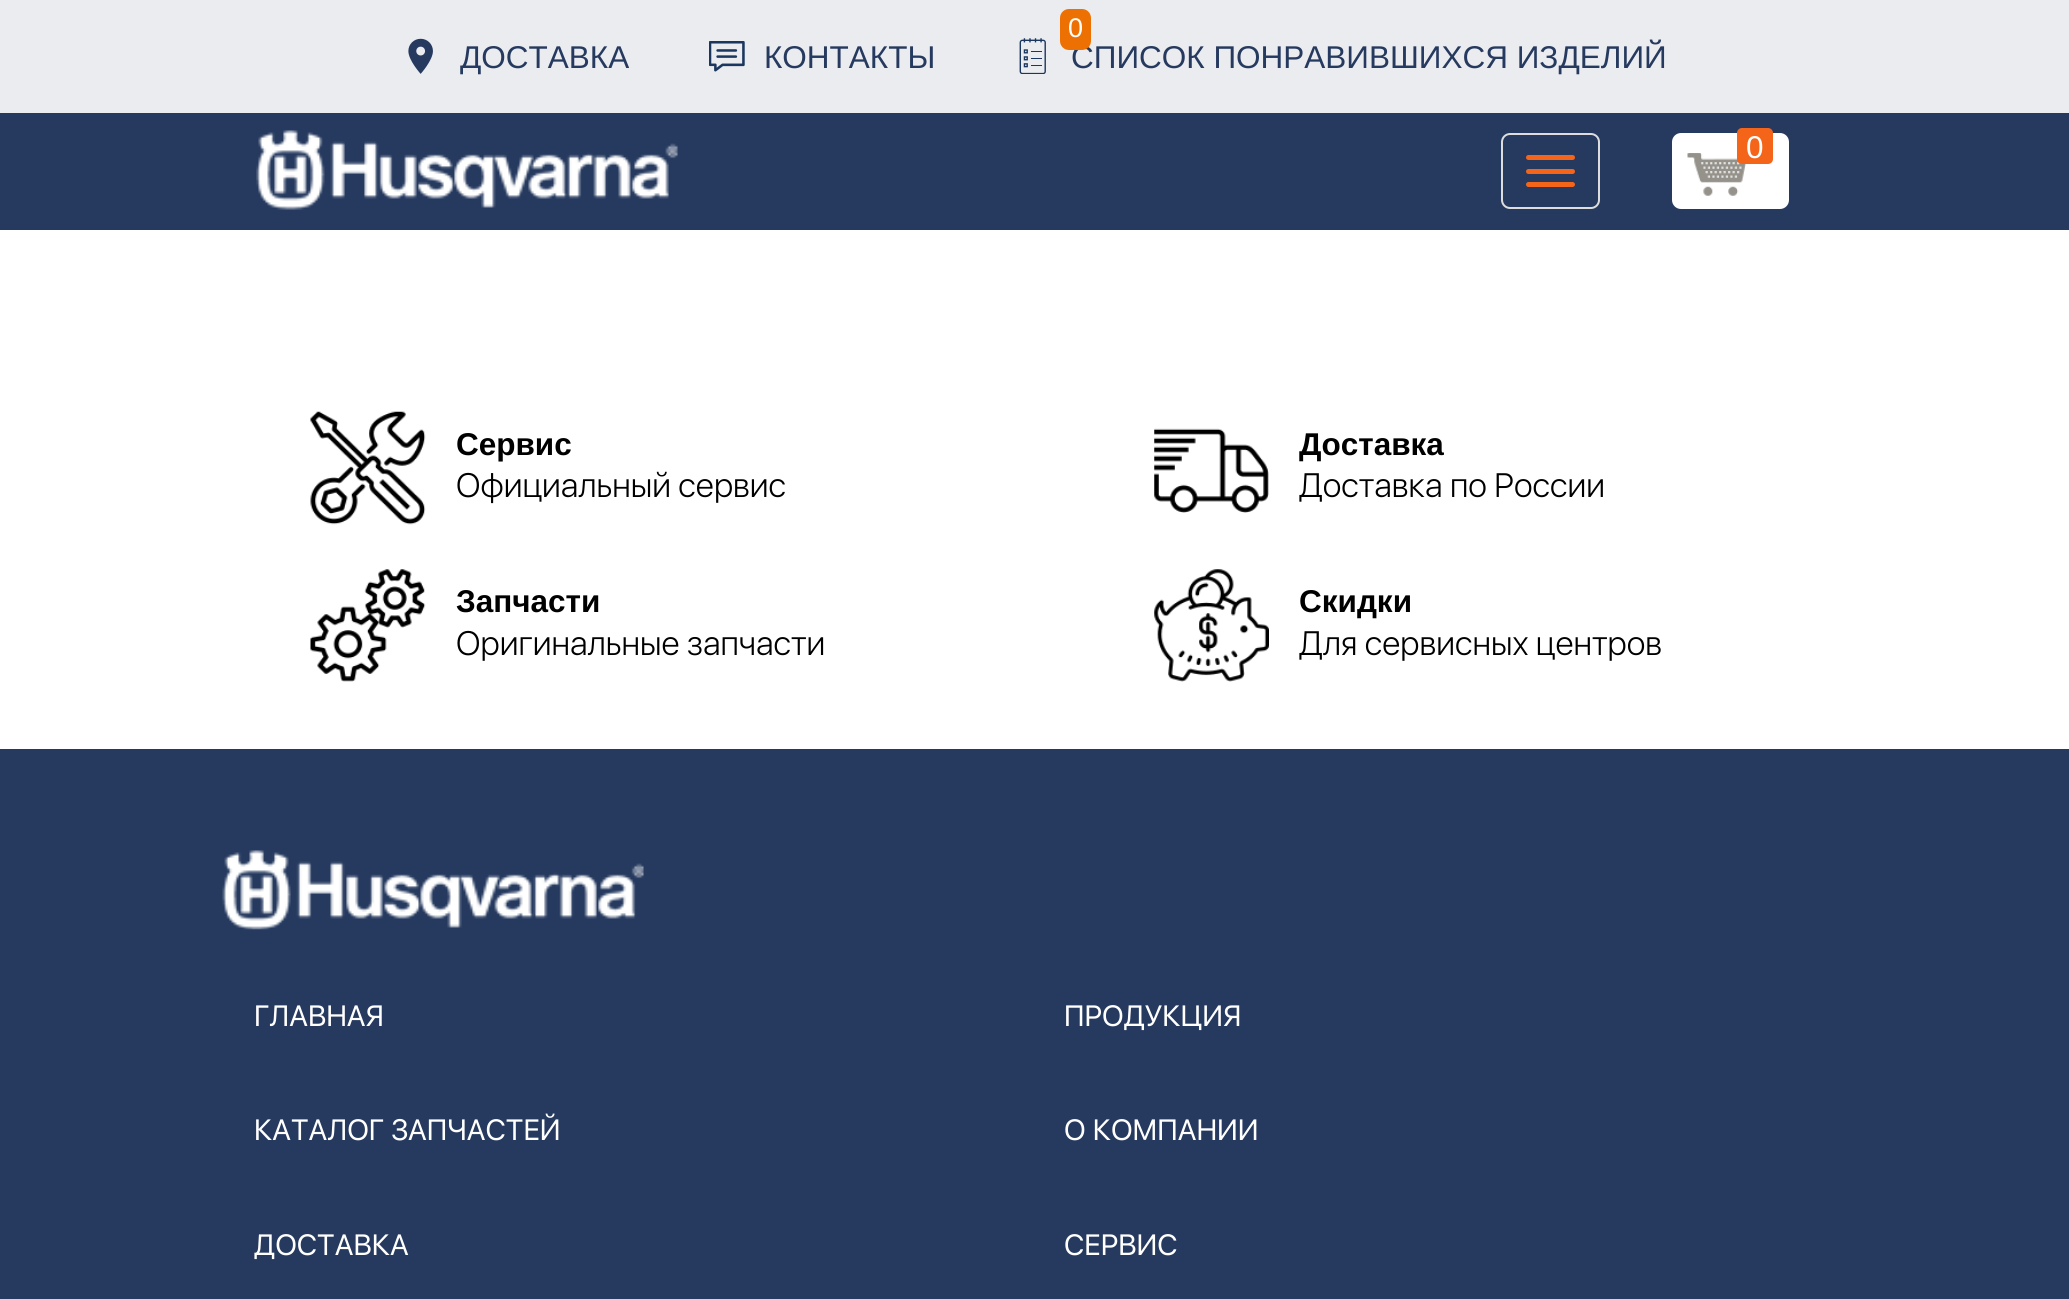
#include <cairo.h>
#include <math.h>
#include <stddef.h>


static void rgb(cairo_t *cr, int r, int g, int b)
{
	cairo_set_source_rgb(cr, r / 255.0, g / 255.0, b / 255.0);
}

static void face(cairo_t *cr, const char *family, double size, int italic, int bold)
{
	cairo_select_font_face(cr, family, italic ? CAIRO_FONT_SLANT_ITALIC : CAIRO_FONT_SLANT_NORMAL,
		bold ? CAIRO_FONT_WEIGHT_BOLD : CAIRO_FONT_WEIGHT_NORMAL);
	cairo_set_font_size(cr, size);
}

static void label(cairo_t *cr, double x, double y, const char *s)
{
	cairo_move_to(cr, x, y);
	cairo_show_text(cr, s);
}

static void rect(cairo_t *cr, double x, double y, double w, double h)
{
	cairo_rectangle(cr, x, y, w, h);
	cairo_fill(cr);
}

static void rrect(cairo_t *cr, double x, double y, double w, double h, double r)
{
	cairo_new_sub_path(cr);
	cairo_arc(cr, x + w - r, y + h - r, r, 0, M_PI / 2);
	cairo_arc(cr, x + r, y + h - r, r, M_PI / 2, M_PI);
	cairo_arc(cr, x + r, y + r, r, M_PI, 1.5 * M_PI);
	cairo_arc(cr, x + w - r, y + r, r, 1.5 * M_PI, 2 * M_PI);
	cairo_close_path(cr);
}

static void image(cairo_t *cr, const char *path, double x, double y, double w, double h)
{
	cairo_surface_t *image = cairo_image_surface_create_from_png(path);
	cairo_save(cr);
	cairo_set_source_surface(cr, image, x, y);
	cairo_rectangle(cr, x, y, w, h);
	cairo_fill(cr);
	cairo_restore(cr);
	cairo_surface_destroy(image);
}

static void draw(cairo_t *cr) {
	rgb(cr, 255, 255, 255);
	cairo_paint(cr);
	rgb(cr, 234, 236, 240);
	rect(cr, 0, 0, 2069, 113);
	image(cr, "image0.png", 408, 38, 25, 36);
	face(cr, "Liberation Sans", 31.5, 0, 0);
	rgb(cr, 38, 58, 95);
	label(cr, 460, 68, "ДОСТАВКА");
	image(cr, "image1.png", 709, 41, 36, 31);
	label(cr, 764, 68, "КОНТАКТЫ");
	image(cr, "image2.png", 1019, 38, 27, 36);
	label(cr, 1071, 68, "СПИСОК ПОНРАВИВШИХСЯ ИЗДЕЛИЙ");
	rgb(cr, 237, 113, 2);
	rrect(cr, 1060, 9, 31, 41, 9);
	cairo_fill(cr);
	face(cr, "Liberation Sans", 27, 0, 0);
	rgb(cr, 255, 255, 255);
	label(cr, 1068, 37, "0");
	rgb(cr, 38, 58, 95);
	rect(cr, 0, 113, 2069, 117);
	image(cr, "image3.png", 256, 130, 422, 80);
	rrect(cr, 1502, 134, 97, 74, 8);
	rgb(cr, 221, 221, 221);
	cairo_stroke(cr);
	rgb(cr, 244, 101, 26);
	rrect(cr, 1526, 155, 49, 5, 2.5);
	cairo_fill(cr);
	rrect(cr, 1526, 169, 49, 5, 2.5);
	cairo_fill(cr);
	rrect(cr, 1526, 182, 49, 5, 2.5);
	cairo_fill(cr);
	rgb(cr, 255, 255, 255);
	rrect(cr, 1672, 133, 117, 76, 9);
	cairo_fill(cr);
	image(cr, "image4.png", 1687, 153, 59, 43);
	rgb(cr, 244, 101, 26);
	rrect(cr, 1737, 128, 36, 36, 5);
	cairo_fill(cr);
	face(cr, "Liberation Sans", 31.5, 0, 0);
	rgb(cr, 255, 255, 255);
	label(cr, 1746, 158, "0");
	image(cr, "image5.png", 310, 411, 116, 114);
	face(cr, "Liberation Sans", 31.5, 0, 1);
	rgb(cr, 0, 0, 0);
	label(cr, 456, 455, "Сервис");
	face(cr, "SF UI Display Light", 33.75, 0, 0);
	label(cr, 456, 497, "Официальный сервис");
	image(cr, "image6.png", 1154, 428, 115, 85);
	face(cr, "Liberation Sans", 31.5, 0, 1);
	label(cr, 1299, 455, "Доставка");
	face(cr, "SF UI Display Light", 33.75, 0, 0);
	label(cr, 1299, 497, "Доставка по России");
	image(cr, "image7.png", 310, 569, 116, 113);
	face(cr, "Liberation Sans", 31.5, 0, 1);
	label(cr, 456, 612, "Запчасти");
	face(cr, "SF UI Display Light", 33.75, 0, 0);
	label(cr, 456, 655, "Оригинальные запчасти");
	image(cr, "image8.png", 1154, 569, 115, 113);
	face(cr, "Liberation Sans", 31.5, 0, 1);
	label(cr, 1299, 612, "Скидки");
	face(cr, "SF UI Display Light", 33.75, 0, 0);
	label(cr, 1299, 655, "Для сервисных центров");
	rgb(cr, 38, 58, 95);
	rect(cr, 0, 749, 2069, 550);
	image(cr, "image9.png", 222, 850, 422, 80);
	face(cr, "SF UI Display", 29.25, 0, 0);
	rgb(cr, 255, 255, 255);
	label(cr, 254, 1026, "ГЛАВНАЯ");
	label(cr, 1064, 1026, "ПРОДУКЦИЯ");
	label(cr, 254, 1140, "КАТАЛОГ ЗАПЧАСТЕЙ");
	label(cr, 1064, 1140, "О КОМПАНИИ");
	label(cr, 254, 1255, "ДОСТАВКА");
	label(cr, 1064, 1255, "СЕРВИС");
}

int main(void) {
	cairo_surface_t *surface = cairo_image_surface_create(CAIRO_FORMAT_RGB24, 2069, 1299);
	cairo_t *cr = cairo_create(surface);
	cairo_font_options_t *options = cairo_font_options_create();
	cairo_font_options_set_hint_metrics(options, CAIRO_HINT_METRICS_OFF);
	cairo_font_options_set_hint_style(options, CAIRO_HINT_STYLE_NONE);
	cairo_set_font_options(cr, options);
	cairo_set_miter_limit(cr, 4);
	draw(cr);
	cairo_surface_write_to_png(surface, "render.png");
	cairo_font_options_destroy(options);
	cairo_destroy(cr);
	cairo_surface_destroy(surface);
	return 0;
}
